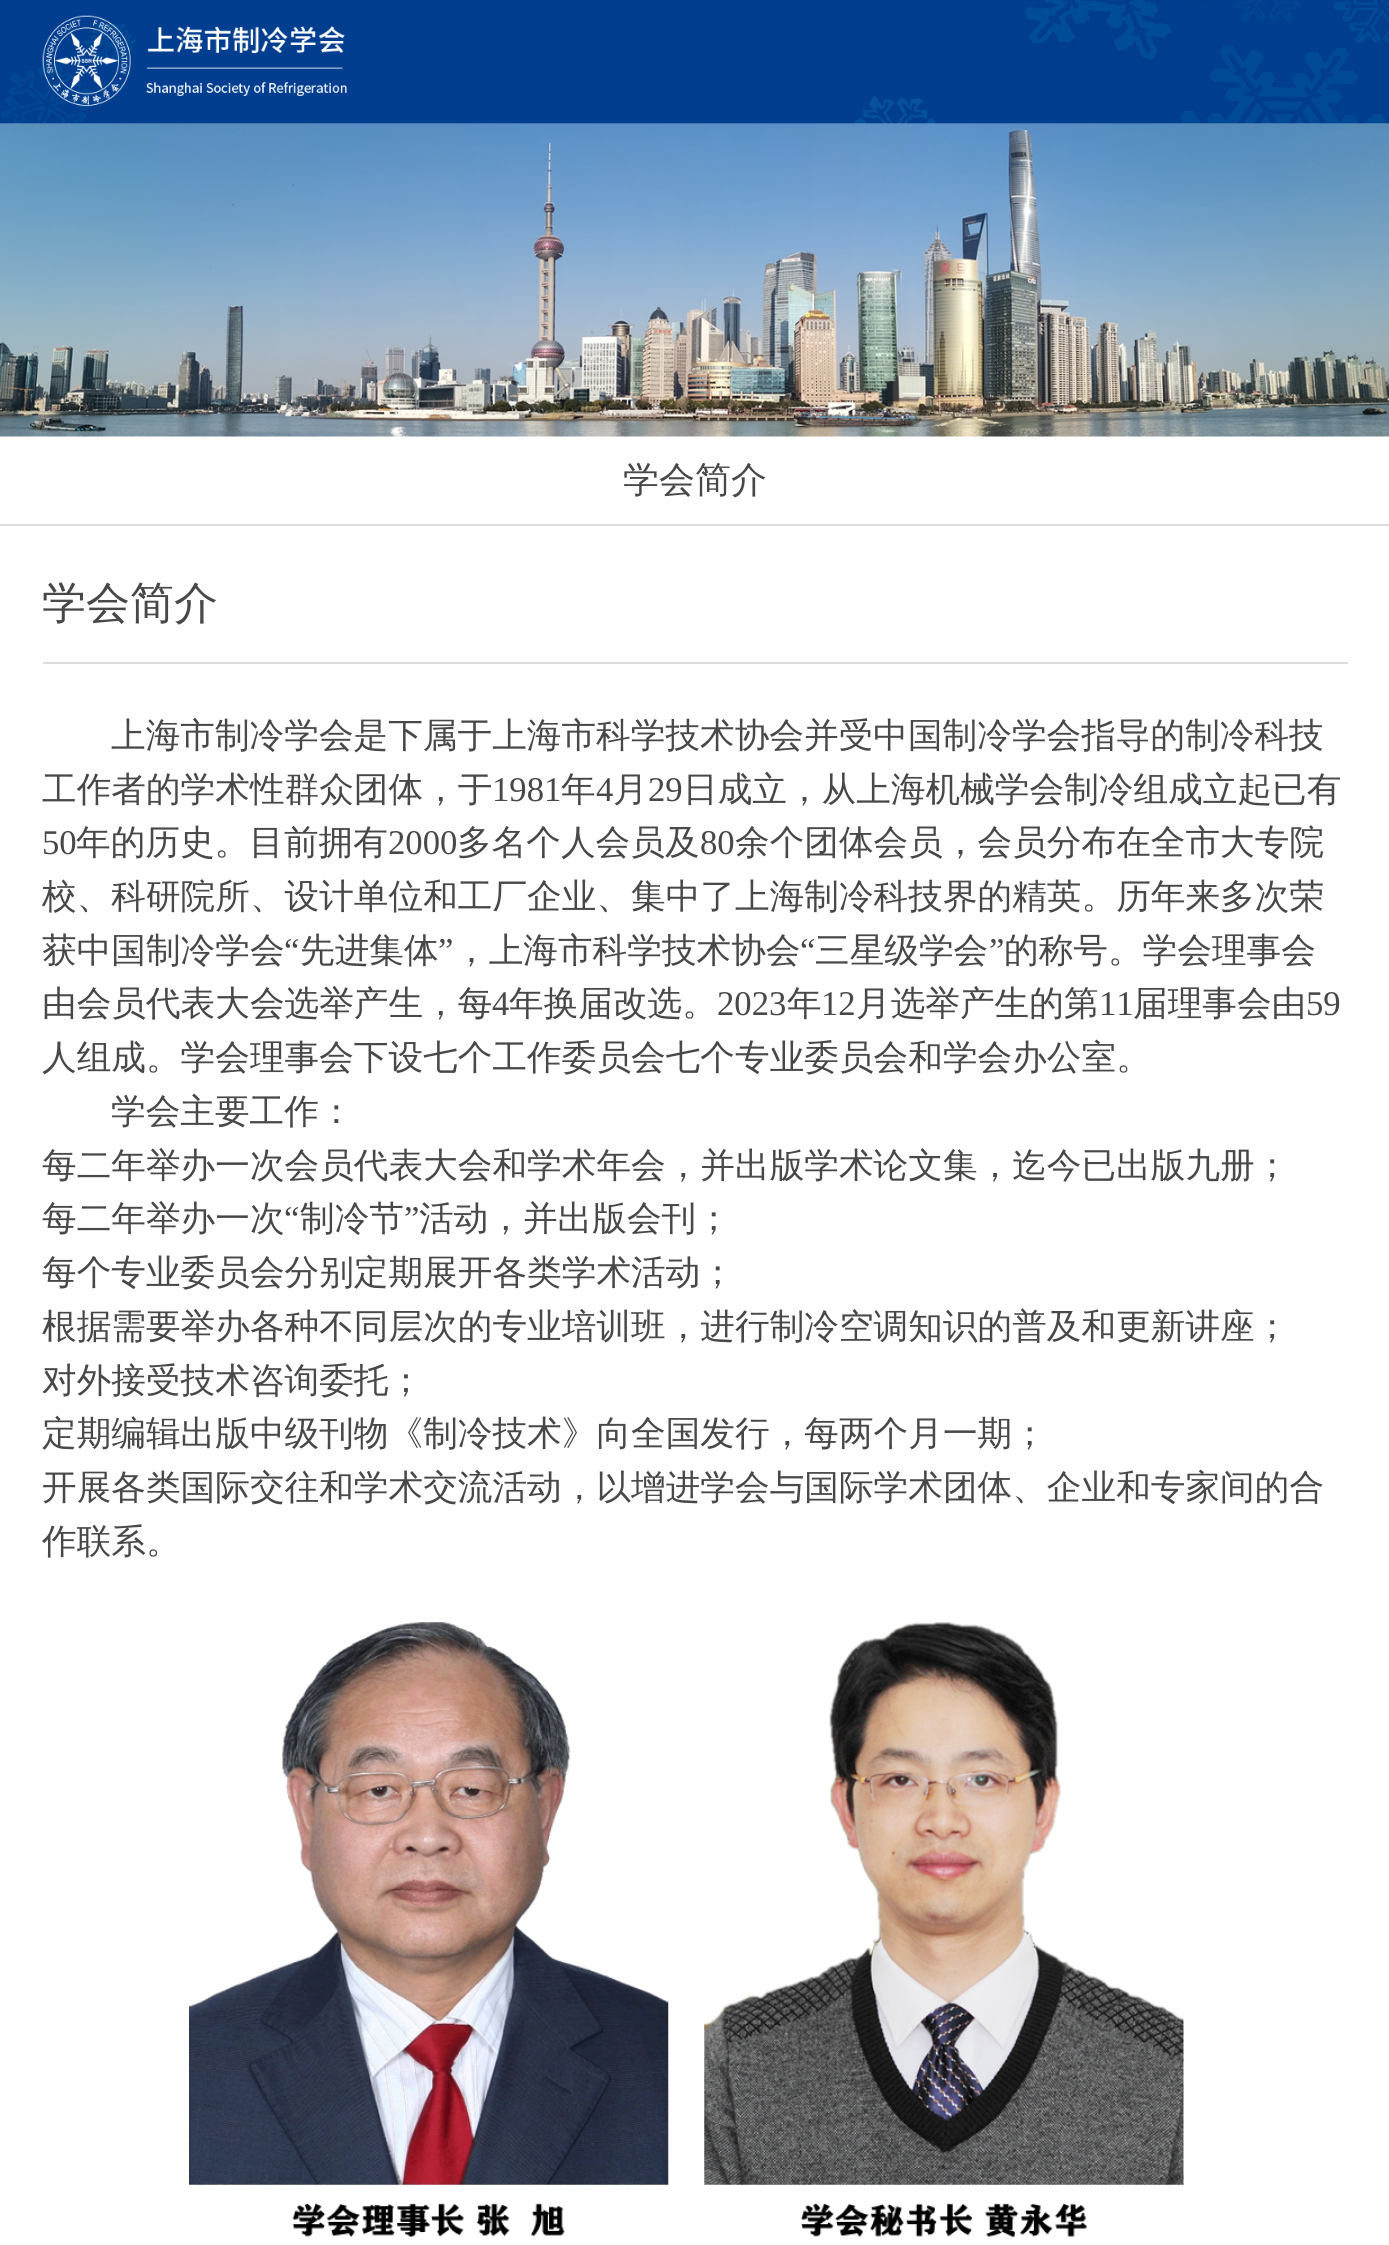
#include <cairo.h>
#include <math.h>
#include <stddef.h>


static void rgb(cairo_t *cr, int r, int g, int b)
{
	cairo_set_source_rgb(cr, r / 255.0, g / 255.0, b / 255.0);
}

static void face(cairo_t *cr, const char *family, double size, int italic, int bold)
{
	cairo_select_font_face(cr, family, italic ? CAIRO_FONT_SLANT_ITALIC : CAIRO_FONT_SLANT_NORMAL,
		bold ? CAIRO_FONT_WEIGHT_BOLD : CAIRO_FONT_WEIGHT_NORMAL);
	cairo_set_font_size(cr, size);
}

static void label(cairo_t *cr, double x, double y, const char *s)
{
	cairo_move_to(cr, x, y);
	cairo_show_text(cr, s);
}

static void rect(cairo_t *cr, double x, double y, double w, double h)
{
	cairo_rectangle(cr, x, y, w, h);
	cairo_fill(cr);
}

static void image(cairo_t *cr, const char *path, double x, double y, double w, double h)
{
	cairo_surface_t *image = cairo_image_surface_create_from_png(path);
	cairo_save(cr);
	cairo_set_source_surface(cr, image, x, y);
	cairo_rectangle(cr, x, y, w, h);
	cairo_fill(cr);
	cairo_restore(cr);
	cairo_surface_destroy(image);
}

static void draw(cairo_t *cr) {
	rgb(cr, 255, 255, 255);
	cairo_paint(cr);
	image(cr, "image0.png", 0, 0, 1389, 124);
	image(cr, "image1.png", 42, 15, 305, 91);
	image(cr, "image2.png", 0, 123, 1389, 314);
	rgb(cr, 221, 221, 221);
	rect(cr, 0, 524, 1389, 2);
	face(cr, "WenQuanYi Zen Hei Medium", 36, 0, 0);
	rgb(cr, 72, 72, 72);
	label(cr, 623, 492, "学会简介");
	face(cr, "WenQuanYi Zen Hei Medium", 44, 0, 0);
	label(cr, 42, 618, "学会简介");
	rgb(cr, 221, 221, 221);
	rect(cr, 43, 662, 1305, 2);
	face(cr, "WenQuanYi Zen Hei Medium", 34.65, 0, 0);
	rgb(cr, 72, 72, 72);
	label(cr, 111, 747, "上海市制冷学会是下属于上海市科学技术协会并受中国制冷学会指导的制冷科技");
	label(cr, 42, 801, "工作者的学术性群众团体，于");
	face(cr, "Liberation Serif", 34.65, 0, 0);
	label(cr, 492, 801, "1981");
	face(cr, "WenQuanYi Zen Hei Medium", 34.65, 0, 0);
	label(cr, 561, 801, "年");
	face(cr, "Liberation Serif", 34.65, 0, 0);
	label(cr, 596, 801, "4");
	face(cr, "WenQuanYi Zen Hei Medium", 34.65, 0, 0);
	label(cr, 613, 801, "月");
	face(cr, "Liberation Serif", 34.65, 0, 0);
	label(cr, 648, 801, "29");
	face(cr, "WenQuanYi Zen Hei Medium", 34.65, 0, 0);
	label(cr, 683, 801, "日成立，从上海机械学会制冷组成立起已有");
	face(cr, "Liberation Serif", 34.65, 0, 0);
	label(cr, 42, 854, "50");
	face(cr, "WenQuanYi Zen Hei Medium", 34.65, 0, 0);
	label(cr, 76, 854, "年的历史。目前拥有");
	face(cr, "Liberation Serif", 34.65, 0, 0);
	label(cr, 388, 854, "2000");
	face(cr, "WenQuanYi Zen Hei Medium", 34.65, 0, 0);
	label(cr, 457, 854, "多名个人会员及");
	face(cr, "Liberation Serif", 34.65, 0, 0);
	label(cr, 700, 854, "80");
	face(cr, "WenQuanYi Zen Hei Medium", 34.65, 0, 0);
	label(cr, 735, 854, "余个团体会员，会员分布在全市大专院");
	label(cr, 42, 908, "校、科研院所、设计单位和工厂企业、集中了上海制冷科技界的精英。历年来多次荣");
	label(cr, 42, 962, "获中国制冷学会");
	face(cr, "Liberation Serif", 34.65, 0, 0);
	label(cr, 284, 962, "“");
	face(cr, "WenQuanYi Zen Hei Medium", 34.65, 0, 0);
	label(cr, 300, 962, "先进集体");
	face(cr, "Liberation Serif", 34.65, 0, 0);
	label(cr, 438, 962, "”");
	face(cr, "WenQuanYi Zen Hei Medium", 34.65, 0, 0);
	label(cr, 454, 962, "，上海市科学技术协会");
	face(cr, "Liberation Serif", 34.65, 0, 0);
	label(cr, 800, 962, "“");
	face(cr, "WenQuanYi Zen Hei Medium", 34.65, 0, 0);
	label(cr, 815, 962, "三星级学会");
	face(cr, "Liberation Serif", 34.65, 0, 0);
	label(cr, 989, 962, "”");
	face(cr, "WenQuanYi Zen Hei Medium", 34.65, 0, 0);
	label(cr, 1004, 962, "的称号。学会理事会");
	label(cr, 42, 1015, "由会员代表大会选举产生，每");
	face(cr, "Liberation Serif", 34.65, 0, 0);
	label(cr, 492, 1015, "4");
	face(cr, "WenQuanYi Zen Hei Medium", 34.65, 0, 0);
	label(cr, 509, 1015, "年换届改选。");
	face(cr, "Liberation Serif", 34.65, 0, 0);
	label(cr, 717, 1015, "2023");
	face(cr, "WenQuanYi Zen Hei Medium", 34.65, 0, 0);
	label(cr, 787, 1015, "年");
	face(cr, "Liberation Serif", 34.65, 0, 0);
	label(cr, 821, 1015, "12");
	face(cr, "WenQuanYi Zen Hei Medium", 34.65, 0, 0);
	label(cr, 856, 1015, "月选举产生的第");
	face(cr, "Liberation Serif", 34.65, 0, 0);
	label(cr, 1099, 1015, "11");
	face(cr, "WenQuanYi Zen Hei Medium", 34.65, 0, 0);
	label(cr, 1133, 1015, "届理事会由");
	face(cr, "Liberation Serif", 34.65, 0, 0);
	label(cr, 1306, 1015, "59");
	face(cr, "WenQuanYi Zen Hei Medium", 34.65, 0, 0);
	label(cr, 42, 1069, "人组成。学会理事会下设七个工作委员会七个专业委员会和学会办公室。");
	label(cr, 111, 1123, "学会主要工作：");
	label(cr, 42, 1177, "每二年举办一次会员代表大会和学术年会，并出版学术论文集，迄今已出版九册；");
	label(cr, 42, 1230, "每二年举办一次");
	face(cr, "Liberation Serif", 34.65, 0, 0);
	label(cr, 284, 1230, "“");
	face(cr, "WenQuanYi Zen Hei Medium", 34.65, 0, 0);
	label(cr, 300, 1230, "制冷节");
	face(cr, "Liberation Serif", 34.65, 0, 0);
	label(cr, 404, 1230, "”");
	face(cr, "WenQuanYi Zen Hei Medium", 34.65, 0, 0);
	label(cr, 419, 1230, "活动，并出版会刊；");
	label(cr, 42, 1284, "每个专业委员会分别定期展开各类学术活动；");
	label(cr, 42, 1338, "根据需要举办各种不同层次的专业培训班，进行制冷空调知识的普及和更新讲座；");
	label(cr, 42, 1392, "对外接受技术咨询委托；");
	label(cr, 42, 1445, "定期编辑出版中级刊物《制冷技术》向全国发行，每两个月一期；");
	label(cr, 42, 1499, "开展各类国际交往和学术交流活动，以增进学会与国际学术团体、企业和专家间的合");
	label(cr, 42, 1553, "作联系。");
	image(cr, "image3.png", 189, 1622, 480, 615);
	image(cr, "image4.png", 704, 1622, 480, 616);
}

int main(void) {
	cairo_surface_t *surface = cairo_image_surface_create(CAIRO_FORMAT_RGB24, 1389, 2245);
	cairo_t *cr = cairo_create(surface);
	cairo_font_options_t *options = cairo_font_options_create();
	cairo_font_options_set_hint_metrics(options, CAIRO_HINT_METRICS_OFF);
	cairo_font_options_set_hint_style(options, CAIRO_HINT_STYLE_NONE);
	cairo_set_font_options(cr, options);
	cairo_set_miter_limit(cr, 4);
	draw(cr);
	cairo_surface_write_to_png(surface, "render.png");
	cairo_font_options_destroy(options);
	cairo_destroy(cr);
	cairo_surface_destroy(surface);
	return 0;
}
